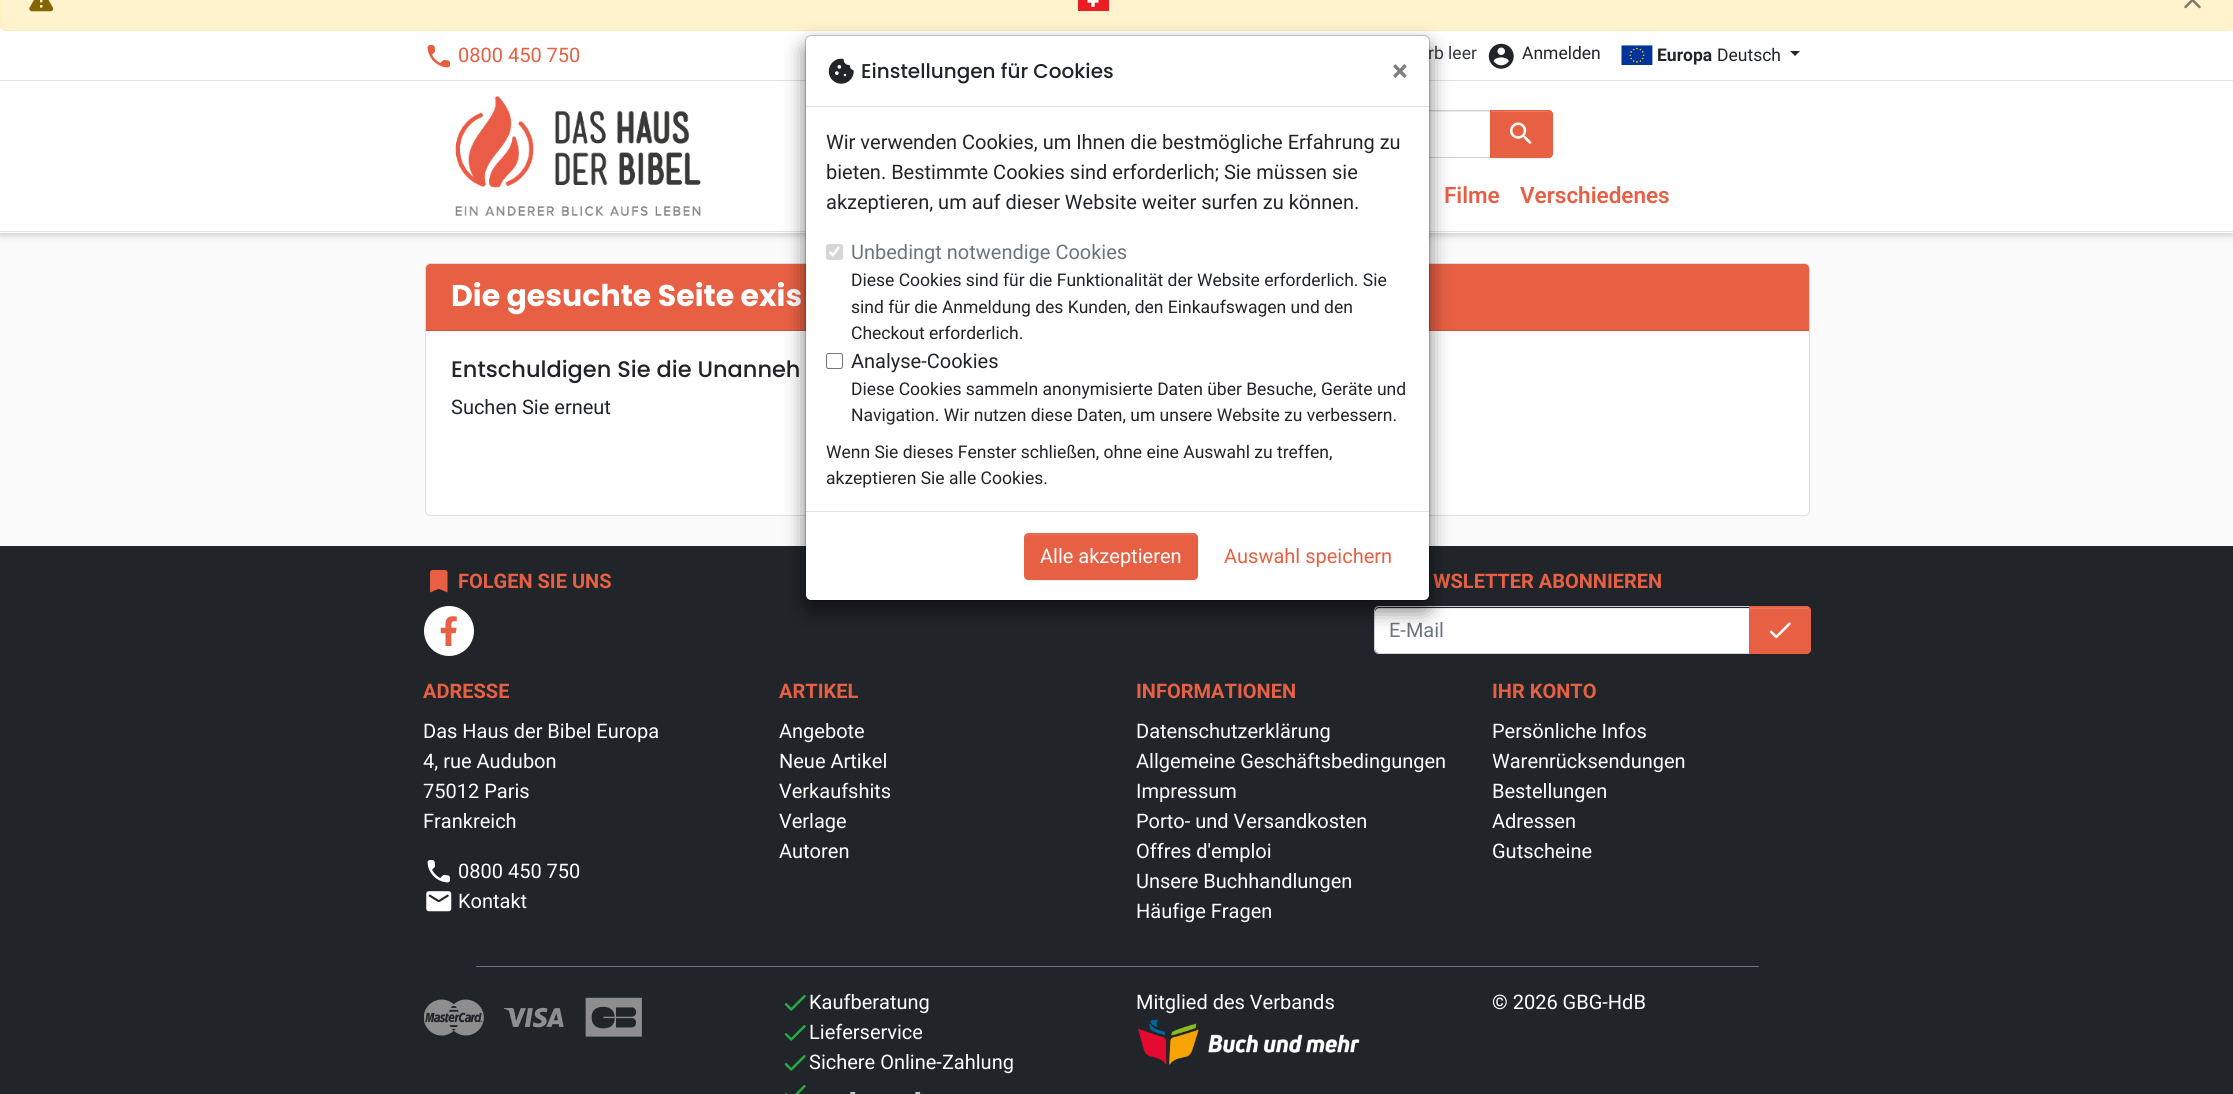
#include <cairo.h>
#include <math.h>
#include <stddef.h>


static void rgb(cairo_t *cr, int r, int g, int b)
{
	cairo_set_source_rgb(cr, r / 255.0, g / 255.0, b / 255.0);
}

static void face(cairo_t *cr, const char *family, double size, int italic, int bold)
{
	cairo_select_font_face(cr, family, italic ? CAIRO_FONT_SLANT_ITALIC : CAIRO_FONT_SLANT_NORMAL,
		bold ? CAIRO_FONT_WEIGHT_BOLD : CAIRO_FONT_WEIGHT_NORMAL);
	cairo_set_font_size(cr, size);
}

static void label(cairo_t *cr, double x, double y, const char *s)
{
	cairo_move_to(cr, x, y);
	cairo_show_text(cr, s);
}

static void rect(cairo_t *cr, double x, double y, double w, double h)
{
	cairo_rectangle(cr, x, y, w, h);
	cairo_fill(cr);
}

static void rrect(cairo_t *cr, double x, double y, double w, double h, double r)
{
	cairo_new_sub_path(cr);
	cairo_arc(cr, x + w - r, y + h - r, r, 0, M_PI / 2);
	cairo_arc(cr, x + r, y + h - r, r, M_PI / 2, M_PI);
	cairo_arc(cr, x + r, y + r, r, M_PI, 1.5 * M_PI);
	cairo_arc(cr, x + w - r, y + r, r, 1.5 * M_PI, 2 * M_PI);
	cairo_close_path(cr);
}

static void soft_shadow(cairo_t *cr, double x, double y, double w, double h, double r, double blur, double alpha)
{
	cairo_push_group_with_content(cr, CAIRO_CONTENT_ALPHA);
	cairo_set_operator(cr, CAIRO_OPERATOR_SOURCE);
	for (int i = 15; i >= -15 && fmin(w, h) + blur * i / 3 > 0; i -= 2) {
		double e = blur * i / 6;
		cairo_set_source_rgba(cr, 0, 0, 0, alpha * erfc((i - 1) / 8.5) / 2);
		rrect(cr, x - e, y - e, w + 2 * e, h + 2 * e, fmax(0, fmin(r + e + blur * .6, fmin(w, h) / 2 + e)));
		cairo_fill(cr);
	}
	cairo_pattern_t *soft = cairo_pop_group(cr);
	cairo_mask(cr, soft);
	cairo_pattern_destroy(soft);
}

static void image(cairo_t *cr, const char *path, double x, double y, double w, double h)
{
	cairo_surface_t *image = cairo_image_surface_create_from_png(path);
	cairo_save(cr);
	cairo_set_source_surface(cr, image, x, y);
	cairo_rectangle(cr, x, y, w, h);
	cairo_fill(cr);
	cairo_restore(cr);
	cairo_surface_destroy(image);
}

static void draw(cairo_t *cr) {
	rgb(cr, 251, 251, 251);
	cairo_paint(cr);
	rgb(cr, 0, 0, 0);
	soft_shadow(cr, 0, -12, 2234, 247, 0, 4, 0.2);
	rgb(cr, 255, 255, 255);
	rect(cr, 0, 26, 2233, 207);
	rgb(cr, 255, 243, 205);
	rrect(cr, 0.5, -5.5, 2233, 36, 4.5);
	cairo_fill_preserve(cr);
	rgb(cr, 255, 238, 186);
	cairo_set_line_width(cr, 1);
	cairo_stroke(cr);
	image(cr, "image0.png", 29, 0, 25, 12);
	rgb(cr, 236, 27, 36);
	rect(cr, 1078, 0, 31, 11);
	cairo_new_path(cr);
	cairo_move_to(cr, 1093, -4.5);
	cairo_line_to(cr, 1093, 7);
	cairo_move_to(cr, 1098.5, 1);
	cairo_line_to(cr, 1087.5, 1);
	rgb(cr, 255, 255, 255);
	cairo_set_line_width(cr, 3.3);
	cairo_stroke(cr);
	image(cr, "image1.png", 2184, 0, 17, 9);
	rgb(cr, 222, 226, 230);
	rect(cr, 0, 231, 2233, 1);
	rect(cr, 0, 80, 2233, 1);
	image(cr, "image2.png", 427, 45, 23, 23);
	face(cr, "Roboto", 20, 0, 0);
	rgb(cr, 232, 96, 68);
	label(cr, 458, 62, "0800 450 750");
	face(cr, "Roboto", 17.5, 0, 0);
	rgb(cr, 52, 58, 64);
	label(cr, 1428, 59, "rb leer");
	image(cr, "image3.png", 1488, 43, 26, 26);
	rgb(cr, 33, 37, 41);
	label(cr, 1522, 59, "Anmelden");
	image(cr, "image4.png", 1621, 45, 32, 20);
	face(cr, "Roboto", 17.5, 0, 1);
	label(cr, 1657, 61, "Europa");
	face(cr, "Roboto", 17.5, 0, 0);
	label(cr, 1717, 61, "Deutsch");
	cairo_new_path(cr);
	cairo_move_to(cr, 1790, 51);
	cairo_line_to(cr, 1800, 51);
	cairo_line_to(cr, 1795, 56);
	cairo_close_path(cr);
	cairo_fill(cr);
	image(cr, "image5.png", 455, 95, 246, 121);
	rgb(cr, 236, 236, 236);
	cairo_new_path(cr);
	cairo_move_to(cr, 995, 112);
	cairo_line_to(cr, 1490, 112);
	cairo_line_to(cr, 1490, 111);
	cairo_line_to(cr, 995, 111);
	cairo_curve_to(cr, 992, 111, 991, 113, 991, 116);
	cairo_curve_to(cr, 991, 114, 993, 112, 995, 112);
	cairo_close_path(cr);
	cairo_fill(cr);
	cairo_rectangle(cr, 990.5, 110.5, 500, 47);
	rgb(cr, 206, 212, 218);
	cairo_set_line_width(cr, 1);
	cairo_stroke(cr);
	rgb(cr, 0, 0, 0);
	soft_shadow(cr, 1490, 111, 63, 48, 5, 0.5, 0.07);
	rgb(cr, 232, 96, 68);
	cairo_new_path(cr);
	cairo_move_to(cr, 1490, 110);
	cairo_line_to(cr, 1548, 110);
	cairo_curve_to(cr, 1551, 110, 1553, 112, 1553, 115);
	cairo_line_to(cr, 1553, 153);
	cairo_curve_to(cr, 1553, 156, 1551, 158, 1548, 158);
	cairo_line_to(cr, 1490, 158);
	cairo_close_path(cr);
	cairo_fill(cr);
	rgb(cr, 235, 120, 96);
	cairo_new_path(cr);
	cairo_move_to(cr, 1491, 112);
	cairo_line_to(cr, 1548, 112);
	cairo_curve_to(cr, 1550, 112, 1551, 114, 1551, 116);
	cairo_line_to(cr, 1551, 115);
	cairo_curve_to(cr, 1551, 113, 1549, 111, 1547, 111);
	cairo_line_to(cr, 1491, 111);
	cairo_close_path(cr);
	cairo_fill(cr);
	cairo_new_path(cr);
	cairo_move_to(cr, 1490.5, 110.5);
	cairo_line_to(cr, 1548, 110.5);
	cairo_curve_to(cr, 1550.5, 110.5, 1552.5, 112.5, 1552.5, 115);
	cairo_line_to(cr, 1552.5, 153);
	cairo_curve_to(cr, 1552.5, 155.5, 1550.5, 157.5, 1548, 157.5);
	cairo_line_to(cr, 1490.5, 157.5);
	cairo_close_path(cr);
	rgb(cr, 232, 96, 68);
	cairo_stroke(cr);
	image(cr, "image6.png", 1510, 122, 22, 22);
	face(cr, "Roboto SemiBold", 22.5, 0, 0);
	label(cr, 1444, 203, "Filme");
	label(cr, 1520, 203, "Verschiedenes");
	rgb(cr, 255, 255, 255);
	rrect(cr, 425.5, 263.5, 1384, 252, 4.5);
	cairo_fill_preserve(cr);
	rgb(cr, 223, 223, 223);
	cairo_stroke(cr);
	rgb(cr, 232, 96, 68);
	cairo_new_path(cr);
	cairo_move_to(cr, 430, 264);
	cairo_line_to(cr, 1805, 264);
	cairo_curve_to(cr, 1807, 264, 1809, 266, 1809, 268);
	cairo_line_to(cr, 1809, 331);
	cairo_line_to(cr, 426, 331);
	cairo_line_to(cr, 426, 268);
	cairo_curve_to(cr, 426, 266, 428, 264, 430, 264);
	cairo_close_path(cr);
	cairo_fill(cr);
	rgb(cr, 203, 84, 60);
	rect(cr, 426, 330, 1383, 1);
	face(cr, "Poppins", 30, 0, 1);
	rgb(cr, 255, 255, 255);
	label(cr, 451, 306, "Die gesuchte Seite exis");
	face(cr, "Poppins Medium", 22.5, 0, 0);
	rgb(cr, 33, 37, 41);
	label(cr, 451, 377, "Entschuldigen Sie die Unanneh");
	face(cr, "Roboto", 20, 0, 0);
	label(cr, 451, 414, "Suchen Sie erneut");
	rect(cr, 0, 546, 2233, 548);
	image(cr, "image7.png", 430, 570, 18, 23);
	face(cr, "Roboto", 20, 0, 1);
	rgb(cr, 232, 96, 68);
	label(cr, 458, 588, "FOLGEN SIE UNS");
	rgb(cr, 255, 255, 255);
	cairo_new_path(cr);
	cairo_arc(cr, 449, 631, 25, 0, 2 * M_PI);
	cairo_fill(cr);
	image(cr, "image8.png", 440, 616, 17, 30);
	rgb(cr, 232, 96, 68);
	label(cr, 1433, 588, "WSLETTER ABONNIEREN");
	rgb(cr, 255, 255, 255);
	cairo_new_path(cr);
	cairo_move_to(cr, 1379, 608);
	cairo_line_to(cr, 1749, 608);
	cairo_line_to(cr, 1749, 653);
	cairo_line_to(cr, 1379, 653);
	cairo_curve_to(cr, 1377, 653, 1375, 651, 1375, 649);
	cairo_line_to(cr, 1375, 612);
	cairo_curve_to(cr, 1375, 610, 1377, 608, 1379, 608);
	cairo_close_path(cr);
	cairo_fill(cr);
	cairo_set_source_rgba(cr, 0, 0, 0, 0.07);
	cairo_new_path(cr);
	cairo_move_to(cr, 1379, 609);
	cairo_line_to(cr, 1749, 609);
	cairo_line_to(cr, 1749, 608);
	cairo_line_to(cr, 1379, 608);
	cairo_curve_to(cr, 1377, 608, 1375, 610, 1375, 612);
	cairo_curve_to(cr, 1375, 610, 1377, 609, 1379, 609);
	cairo_close_path(cr);
	cairo_fill(cr);
	cairo_new_path(cr);
	cairo_move_to(cr, 1379, 606.5);
	cairo_line_to(cr, 1749.5, 606.5);
	cairo_line_to(cr, 1749.5, 653.5);
	cairo_line_to(cr, 1379, 653.5);
	cairo_curve_to(cr, 1376.5, 653.5, 1374.5, 651.5, 1374.5, 649);
	cairo_line_to(cr, 1374.5, 611);
	cairo_curve_to(cr, 1374.5, 608.5, 1376.5, 606.5, 1379, 606.5);
	cairo_close_path(cr);
	rgb(cr, 206, 212, 218);
	cairo_stroke(cr);
	face(cr, "Roboto", 20, 0, 0);
	rgb(cr, 108, 117, 125);
	label(cr, 1389, 637, "E-Mail");
	rgb(cr, 0, 0, 0);
	soft_shadow(cr, 1749, 608, 62, 47, 5, 0.5, 0.07);
	rgb(cr, 232, 96, 68);
	cairo_new_path(cr);
	cairo_move_to(cr, 1749, 606);
	cairo_line_to(cr, 1806, 606);
	cairo_curve_to(cr, 1809, 606, 1811, 608, 1811, 611);
	cairo_line_to(cr, 1811, 649);
	cairo_curve_to(cr, 1811, 652, 1809, 654, 1806, 654);
	cairo_line_to(cr, 1749, 654);
	cairo_close_path(cr);
	cairo_fill(cr);
	rgb(cr, 235, 120, 96);
	cairo_new_path(cr);
	cairo_move_to(cr, 1750, 609);
	cairo_line_to(cr, 1806, 609);
	cairo_curve_to(cr, 1808, 609, 1810, 610, 1810, 612);
	cairo_curve_to(cr, 1810, 610, 1808, 608, 1806, 608);
	cairo_line_to(cr, 1750, 608);
	cairo_close_path(cr);
	cairo_fill(cr);
	cairo_new_path(cr);
	cairo_move_to(cr, 1749.5, 606.5);
	cairo_line_to(cr, 1806, 606.5);
	cairo_curve_to(cr, 1808.5, 606.5, 1810.5, 608.5, 1810.5, 611);
	cairo_line_to(cr, 1810.5, 649);
	cairo_curve_to(cr, 1810.5, 651.5, 1808.5, 653.5, 1806, 653.5);
	cairo_line_to(cr, 1749.5, 653.5);
	cairo_close_path(cr);
	rgb(cr, 232, 96, 68);
	cairo_stroke(cr);
	image(cr, "image9.png", 1769, 622, 22, 17);
	face(cr, "Roboto", 20, 0, 1);
	label(cr, 423, 698, "ADRESSE");
	face(cr, "Roboto", 20, 0, 0);
	rgb(cr, 255, 255, 255);
	label(cr, 423, 738, "Das Haus der Bibel Europa");
	label(cr, 423, 768, "4, rue Audubon");
	label(cr, 423, 798, "75012 Paris");
	label(cr, 423, 828, "Frankreich");
	image(cr, "image10.png", 427, 860, 23, 23);
	label(cr, 458, 878, "0800 450 750");
	image(cr, "image11.png", 426, 891, 26, 21);
	label(cr, 458, 908, "Kontakt");
	face(cr, "Roboto", 20, 0, 1);
	rgb(cr, 232, 96, 68);
	label(cr, 779, 698, "ARTIKEL");
	face(cr, "Roboto", 20, 0, 0);
	rgb(cr, 255, 255, 255);
	label(cr, 779, 738, "Angebote");
	label(cr, 779, 768, "Neue Artikel");
	label(cr, 779, 798, "Verkaufshits");
	label(cr, 779, 828, "Verlage");
	label(cr, 779, 858, "Autoren");
	face(cr, "Roboto", 20, 0, 1);
	rgb(cr, 232, 96, 68);
	label(cr, 1136, 698, "INFORMATIONEN");
	face(cr, "Roboto", 20, 0, 0);
	rgb(cr, 255, 255, 255);
	label(cr, 1136, 738, "Datenschutzerklärung");
	label(cr, 1136, 768, "Allgemeine Geschäftsbedingungen");
	label(cr, 1136, 798, "Impressum");
	label(cr, 1136, 828, "Porto- und Versandkosten");
	label(cr, 1136, 858, "Offres d'emploi");
	label(cr, 1136, 888, "Unsere Buchhandlungen");
	label(cr, 1136, 918, "Häufige Fragen");
	face(cr, "Roboto", 20, 0, 1);
	rgb(cr, 232, 96, 68);
	label(cr, 1492, 698, "IHR KONTO");
	face(cr, "Roboto", 20, 0, 0);
	rgb(cr, 255, 255, 255);
	label(cr, 1492, 738, "Persönliche Infos");
	label(cr, 1492, 768, "Warenrücksendungen");
	label(cr, 1492, 798, "Bestellungen");
	label(cr, 1492, 828, "Adressen");
	label(cr, 1492, 858, "Gutscheine");
	rgb(cr, 108, 117, 125);
	rect(cr, 476, 966, 1283, 1);
	image(cr, "image12.png", 424, 999, 60, 37);
	image(cr, "image13.png", 504, 1007, 60, 21);
	image(cr, "image14.png", 585, 997, 57, 40);
	image(cr, "image15.png", 784, 995, 22, 16);
	rgb(cr, 255, 255, 255);
	label(cr, 809, 1009, "Kaufberatung");
	image(cr, "image15.png", 784, 1025, 22, 16);
	label(cr, 809, 1039, "Lieferservice");
	image(cr, "image15.png", 784, 1055, 22, 16);
	label(cr, 809, 1069, "Sichere Online-Zahlung");
	image(cr, "image16.png", 784, 1085, 22, 9);
	label(cr, 850, 1099, "-");
	label(cr, 915, 1099, "-");
	label(cr, 1136, 1009, "Mitglied des Verbands");
	image(cr, "image17.png", 1138, 1019, 222, 46);
	label(cr, 1492, 1009, "© 2026 GBG-HdB");
	rgb(cr, 0, 0, 0);
	soft_shadow(cr, 805, 45, 625, 566, 6, 10, 0.5);
	rgb(cr, 255, 255, 255);
	rrect(cr, 806, 36, 623, 564, 5);
	cairo_fill(cr);
	rrect(cr, 805.5, 35.5, 624, 565, 5.5);
	cairo_set_source_rgba(cr, 0, 0, 0, 0.2);
	cairo_stroke(cr);
	rgb(cr, 222, 226, 230);
	rect(cr, 806, 106, 623, 1);
	image(cr, "image18.png", 828, 58, 26, 26);
	face(cr, "Poppins Medium", 20, 0, 0);
	rgb(cr, 33, 37, 41);
	label(cr, 861, 78, "Einstellungen für Cookies");
	face(cr, "Roboto", 30, 0, 1);
	rgb(cr, 128, 128, 128);
	label(cr, 1392, 81, "×");
	face(cr, "Roboto", 20, 0, 0);
	rgb(cr, 33, 37, 41);
	label(cr, 826, 149, "Wir verwenden Cookies, um Ihnen die bestmögliche Erfahrung zu");
	label(cr, 826, 179, "bieten. Bestimmte Cookies sind erforderlich; Sie müssen sie");
	label(cr, 826, 209, "akzeptieren, um auf dieser Website weiter surfen zu können.");
	rgb(cr, 214, 214, 214);
	rrect(cr, 826, 244, 17, 16, 2.5);
	cairo_fill(cr);
	cairo_new_path(cr);
	cairo_move_to(cr, 829.5, 252);
	cairo_line_to(cr, 833, 255);
	cairo_line_to(cr, 839, 247);
	rgb(cr, 255, 255, 255);
	cairo_set_line_width(cr, 2.6);
	cairo_stroke(cr);
	rgb(cr, 108, 117, 125);
	label(cr, 851, 259, "Unbedingt notwendige Cookies");
	face(cr, "Roboto", 17.5, 0, 0);
	rgb(cr, 33, 37, 41);
	label(cr, 851, 286, "Diese Cookies sind für die Funktionalität der Website erforderlich. Sie");
	label(cr, 851, 313, "sind für die Anmeldung des Kunden, den Einkaufswagen und den");
	label(cr, 851, 339, "Checkout erforderlich.");
	rrect(cr, 826.5, 353.5, 16, 15, 2);
	rgb(cr, 118, 118, 118);
	cairo_set_line_width(cr, 1);
	cairo_stroke(cr);
	face(cr, "Roboto", 20, 0, 0);
	rgb(cr, 33, 37, 41);
	label(cr, 851, 368, "Analyse-Cookies");
	face(cr, "Roboto", 17.5, 0, 0);
	label(cr, 851, 395, "Diese Cookies sammeln anonymisierte Daten über Besuche, Geräte und");
	label(cr, 851, 421, "Navigation. Wir nutzen diese Daten, um unsere Website zu verbessern.");
	label(cr, 826, 458, "Wenn Sie dieses Fenster schließen, ohne eine Auswahl zu treffen,");
	label(cr, 826, 484, "akzeptieren Sie alle Cookies.");
	rgb(cr, 222, 226, 230);
	rect(cr, 806, 511, 623, 1);
	rgb(cr, 0, 0, 0);
	soft_shadow(cr, 1024, 534, 174, 47, 5, 0.5, 0.07);
	rgb(cr, 232, 96, 68);
	rrect(cr, 1024, 533, 174, 47, 5);
	cairo_fill(cr);
	rgb(cr, 235, 120, 96);
	cairo_new_path(cr);
	cairo_move_to(cr, 1029, 535);
	cairo_line_to(cr, 1192, 535);
	cairo_curve_to(cr, 1195, 535, 1196, 537, 1196, 539);
	cairo_line_to(cr, 1196, 538);
	cairo_curve_to(cr, 1196, 536, 1194, 534, 1192, 534);
	cairo_line_to(cr, 1029, 534);
	cairo_curve_to(cr, 1027, 534, 1025, 536, 1025, 538);
	cairo_line_to(cr, 1025, 539);
	cairo_curve_to(cr, 1025, 537, 1027, 535, 1029, 535);
	cairo_close_path(cr);
	cairo_fill(cr);
	rrect(cr, 1024.5, 533.5, 173, 46, 4.5);
	rgb(cr, 232, 96, 68);
	cairo_stroke(cr);
	face(cr, "Roboto", 20, 0, 0);
	rgb(cr, 255, 255, 255);
	label(cr, 1040, 563, "Alle akzeptieren");
	rgb(cr, 232, 96, 68);
	label(cr, 1224, 563, "Auswahl speichern");
}

int main(void) {
	cairo_surface_t *surface = cairo_image_surface_create(CAIRO_FORMAT_RGB24, 2233, 1094);
	cairo_t *cr = cairo_create(surface);
	cairo_font_options_t *options = cairo_font_options_create();
	cairo_font_options_set_hint_metrics(options, CAIRO_HINT_METRICS_OFF);
	cairo_font_options_set_hint_style(options, CAIRO_HINT_STYLE_NONE);
	cairo_set_font_options(cr, options);
	cairo_set_miter_limit(cr, 4);
	draw(cr);
	cairo_surface_write_to_png(surface, "render.png");
	cairo_font_options_destroy(options);
	cairo_destroy(cr);
	cairo_surface_destroy(surface);
	return 0;
}
